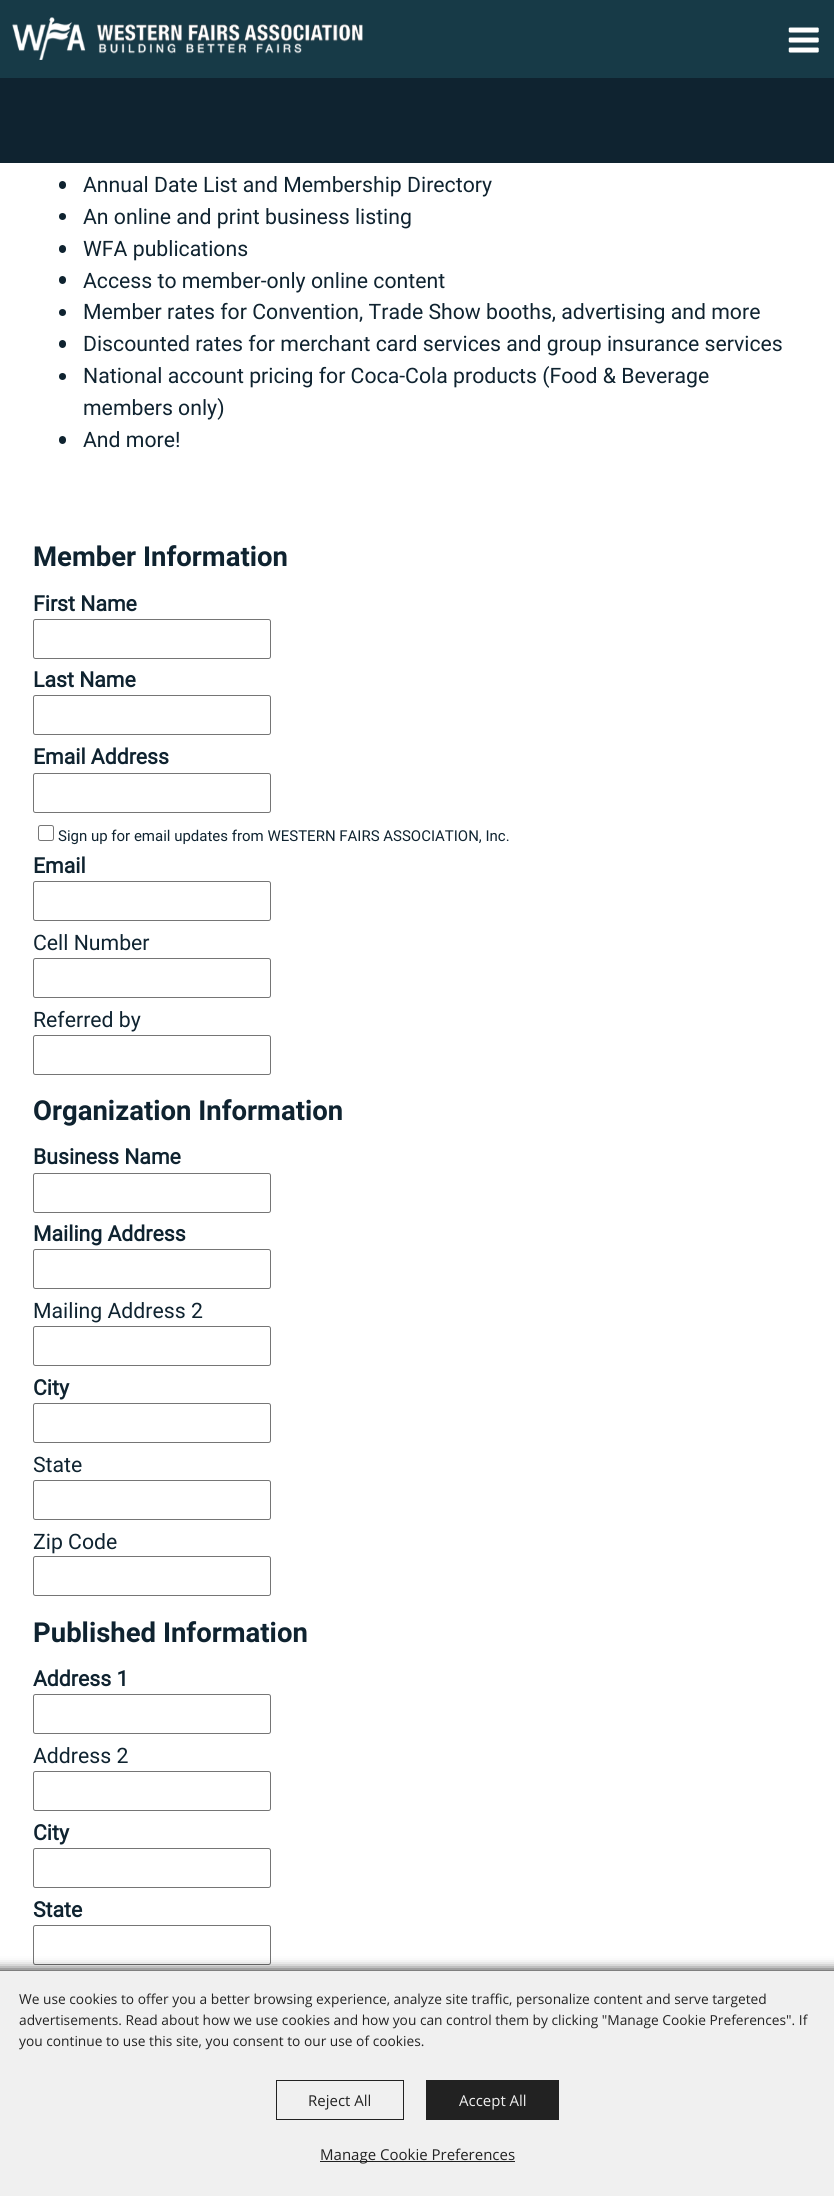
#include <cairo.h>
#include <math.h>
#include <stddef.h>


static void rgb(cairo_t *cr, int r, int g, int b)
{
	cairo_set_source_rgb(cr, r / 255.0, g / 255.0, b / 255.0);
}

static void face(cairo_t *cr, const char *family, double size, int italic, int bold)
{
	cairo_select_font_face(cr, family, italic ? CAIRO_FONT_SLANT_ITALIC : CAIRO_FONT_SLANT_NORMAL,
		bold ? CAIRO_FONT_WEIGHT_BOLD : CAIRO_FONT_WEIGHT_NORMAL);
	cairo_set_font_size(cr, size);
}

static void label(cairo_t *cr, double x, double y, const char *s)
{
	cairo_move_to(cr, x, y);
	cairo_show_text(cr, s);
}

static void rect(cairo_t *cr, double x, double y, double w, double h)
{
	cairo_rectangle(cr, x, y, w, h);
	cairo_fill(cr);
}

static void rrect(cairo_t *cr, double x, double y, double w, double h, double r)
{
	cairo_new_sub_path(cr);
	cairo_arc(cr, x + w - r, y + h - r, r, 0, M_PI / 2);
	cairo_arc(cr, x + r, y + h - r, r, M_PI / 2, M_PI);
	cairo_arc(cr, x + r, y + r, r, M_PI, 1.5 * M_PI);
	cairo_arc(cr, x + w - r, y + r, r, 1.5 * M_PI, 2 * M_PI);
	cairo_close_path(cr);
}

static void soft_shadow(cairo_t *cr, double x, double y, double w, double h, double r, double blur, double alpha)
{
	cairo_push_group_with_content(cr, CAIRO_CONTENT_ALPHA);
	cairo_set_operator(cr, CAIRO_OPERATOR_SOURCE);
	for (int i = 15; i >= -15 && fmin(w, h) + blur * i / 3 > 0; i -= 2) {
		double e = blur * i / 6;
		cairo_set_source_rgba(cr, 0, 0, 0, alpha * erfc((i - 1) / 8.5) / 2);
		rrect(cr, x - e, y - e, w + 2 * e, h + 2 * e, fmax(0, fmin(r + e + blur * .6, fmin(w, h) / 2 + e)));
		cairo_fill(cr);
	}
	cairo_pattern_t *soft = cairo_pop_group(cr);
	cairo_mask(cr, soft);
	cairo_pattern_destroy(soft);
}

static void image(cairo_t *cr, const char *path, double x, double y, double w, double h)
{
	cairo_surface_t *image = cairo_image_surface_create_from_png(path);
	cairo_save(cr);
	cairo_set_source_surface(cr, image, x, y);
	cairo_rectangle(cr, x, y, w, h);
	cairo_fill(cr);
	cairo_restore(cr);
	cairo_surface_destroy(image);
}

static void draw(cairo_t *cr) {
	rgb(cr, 255, 255, 255);
	cairo_paint(cr);
	rgb(cr, 23, 58, 71);
	rect(cr, 0, 0, 834, 78);
	image(cr, "image0.png", 12, 17, 351, 43);
	image(cr, "image1.png", 788, 27, 31, 26);
	rgb(cr, 15, 35, 48);
	rect(cr, 0, 78, 834, 85);
	rrect(cr, 59, 181, 7, 8, 3.5);
	cairo_fill(cr);
	face(cr, "Roboto", 21.25, 0, 0);
	label(cr, 83, 192, "Annual Date List and Membership Directory");
	cairo_new_path(cr);
	cairo_arc(cr, 62.5, 216.5, 3.5, 0, 2 * M_PI);
	cairo_fill(cr);
	label(cr, 83, 224, "An online and print business listing");
	rrect(cr, 59, 245, 7, 8, 3.5);
	cairo_fill(cr);
	label(cr, 83, 256, "WFA publications");
	rrect(cr, 59, 276, 7, 8, 3.5);
	cairo_fill(cr);
	label(cr, 83, 288, "Access to member-only online content");
	cairo_new_path(cr);
	cairo_arc(cr, 62.5, 312.5, 3.5, 0, 2 * M_PI);
	cairo_fill(cr);
	label(cr, 83, 319, "Member rates for Convention, Trade Show booths, advertising and more");
	rrect(cr, 59, 340, 7, 8, 3.5);
	cairo_fill(cr);
	label(cr, 83, 351, "Discounted rates for merchant card services and group insurance services");
	cairo_new_path(cr);
	cairo_arc(cr, 62.5, 376.5, 3.5, 0, 2 * M_PI);
	cairo_fill(cr);
	label(cr, 83, 383, "National account pricing for Coca-Cola products (Food & Beverage");
	label(cr, 83, 415, "members only)");
	rrect(cr, 59, 436, 7, 8, 3.5);
	cairo_fill(cr);
	label(cr, 83, 447, "And more!");
	face(cr, "Roboto", 27.5, 0, 1);
	label(cr, 33, 566, "Member Information");
	face(cr, "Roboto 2", 21.25, 0, 1);
	label(cr, 33, 611, "First Name");
	rrect(cr, 33.5, 619.5, 237, 39, 2);
	rgb(cr, 117, 117, 117);
	cairo_set_line_width(cr, 1);
	cairo_stroke(cr);
	rgb(cr, 15, 35, 48);
	label(cr, 33, 687, "Last Name");
	rrect(cr, 33.5, 695.5, 237, 39, 2);
	rgb(cr, 117, 117, 117);
	cairo_stroke(cr);
	rgb(cr, 15, 35, 48);
	label(cr, 33, 764, "Email Address");
	rrect(cr, 33.5, 773.5, 237, 39, 2);
	rgb(cr, 117, 117, 117);
	cairo_stroke(cr);
	rrect(cr, 38.5, 825.5, 15, 15, 2);
	rgb(cr, 118, 118, 118);
	cairo_stroke(cr);
	face(cr, "Roboto", 15, 0, 0);
	rgb(cr, 15, 35, 48);
	label(cr, 58, 841, "Sign up for email updates from WESTERN FAIRS ASSOCIATION, Inc.");
	face(cr, "Roboto 2", 21.25, 0, 1);
	label(cr, 33, 873, "Email");
	rrect(cr, 33.5, 881.5, 237, 39, 2);
	rgb(cr, 117, 117, 117);
	cairo_stroke(cr);
	face(cr, "Roboto", 21.25, 0, 0);
	rgb(cr, 15, 35, 48);
	label(cr, 33, 950, "Cell Number");
	rrect(cr, 33.5, 958.5, 237, 39, 2);
	rgb(cr, 117, 117, 117);
	cairo_stroke(cr);
	rgb(cr, 15, 35, 48);
	label(cr, 33, 1027, "Referred by");
	rrect(cr, 33.5, 1035.5, 237, 39, 2);
	rgb(cr, 117, 117, 117);
	cairo_stroke(cr);
	face(cr, "Roboto", 27.5, 0, 1);
	rgb(cr, 15, 35, 48);
	label(cr, 33, 1120, "Organization Information");
	face(cr, "Roboto 2", 21.25, 0, 1);
	label(cr, 33, 1164, "Business Name");
	rrect(cr, 33.5, 1173.5, 237, 39, 2);
	rgb(cr, 117, 117, 117);
	cairo_stroke(cr);
	rgb(cr, 15, 35, 48);
	label(cr, 33, 1241, "Mailing Address");
	rrect(cr, 33.5, 1249.5, 237, 39, 2);
	rgb(cr, 117, 117, 117);
	cairo_stroke(cr);
	face(cr, "Roboto", 21.25, 0, 0);
	rgb(cr, 15, 35, 48);
	label(cr, 33, 1318, "Mailing Address 2");
	rrect(cr, 33.5, 1326.5, 237, 39, 2);
	rgb(cr, 117, 117, 117);
	cairo_stroke(cr);
	face(cr, "Roboto 2", 21.25, 0, 1);
	rgb(cr, 15, 35, 48);
	label(cr, 33, 1395, "City");
	rrect(cr, 33.5, 1403.5, 237, 39, 2);
	rgb(cr, 117, 117, 117);
	cairo_stroke(cr);
	face(cr, "Roboto", 21.25, 0, 0);
	rgb(cr, 15, 35, 48);
	label(cr, 33, 1472, "State");
	rrect(cr, 33.5, 1480.5, 237, 39, 2);
	rgb(cr, 117, 117, 117);
	cairo_stroke(cr);
	rgb(cr, 15, 35, 48);
	label(cr, 33, 1549, "Zip Code");
	rrect(cr, 33.5, 1556.5, 237, 39, 2);
	rgb(cr, 117, 117, 117);
	cairo_stroke(cr);
	face(cr, "Roboto", 27.5, 0, 1);
	rgb(cr, 15, 35, 48);
	label(cr, 33, 1642, "Published Information");
	face(cr, "Roboto 2", 21.25, 0, 1);
	label(cr, 33, 1686, "Address 1");
	rrect(cr, 33.5, 1694.5, 237, 39, 2);
	rgb(cr, 117, 117, 117);
	cairo_stroke(cr);
	face(cr, "Roboto", 21.25, 0, 0);
	rgb(cr, 15, 35, 48);
	label(cr, 33, 1763, "Address 2");
	rrect(cr, 33.5, 1771.5, 237, 39, 2);
	rgb(cr, 117, 117, 117);
	cairo_stroke(cr);
	face(cr, "Roboto 2", 21.25, 0, 1);
	rgb(cr, 15, 35, 48);
	label(cr, 33, 1840, "City");
	rrect(cr, 33.5, 1848.5, 237, 39, 2);
	rgb(cr, 117, 117, 117);
	cairo_stroke(cr);
	rgb(cr, 15, 35, 48);
	label(cr, 33, 1917, "State");
	rrect(cr, 33.5, 1925.5, 237, 39, 2);
	rgb(cr, 117, 117, 117);
	cairo_stroke(cr);
	rgb(cr, 0, 0, 0);
	soft_shadow(cr, -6, 1971, 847, 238, 0, 6, 1);
	rgb(cr, 240, 240, 240);
	rect(cr, 0, 1971, 834, 225);
	face(cr, "Open Sans", 13.75, 0, 0);
	rgb(cr, 34, 34, 34);
	label(cr, 19, 2004, "We use cookies to offer you a better browsing experience, analyze site traffic, personalize content and serve targeted");
	label(cr, 19, 2025, "advertisements. Read about how we use cookies and how you can control them by clicking \"Manage Cookie Preferences\". If");
	label(cr, 19, 2046, "you continue to use this site, you consent to our use of cookies.");
	cairo_rectangle(cr, 276.5, 2080.5, 127, 39);
	cairo_stroke(cr);
	face(cr, "Open Sans", 15, 0, 0);
	label(cr, 308, 2106, "Reject All");
	rect(cr, 426, 2080, 133, 40);
	rgb(cr, 240, 240, 240);
	label(cr, 459, 2106, "Accept All");
	rgb(cr, 34, 34, 34);
	rect(cr, 320, 2161, 195, 1);
	label(cr, 320, 2160, "Manage Cookie Preferences");
}

int main(void) {
	cairo_surface_t *surface = cairo_image_surface_create(CAIRO_FORMAT_RGB24, 834, 2196);
	cairo_t *cr = cairo_create(surface);
	cairo_font_options_t *options = cairo_font_options_create();
	cairo_font_options_set_hint_metrics(options, CAIRO_HINT_METRICS_OFF);
	cairo_font_options_set_hint_style(options, CAIRO_HINT_STYLE_NONE);
	cairo_set_font_options(cr, options);
	cairo_set_miter_limit(cr, 4);
	draw(cr);
	cairo_surface_write_to_png(surface, "render.png");
	cairo_font_options_destroy(options);
	cairo_destroy(cr);
	cairo_surface_destroy(surface);
	return 0;
}
